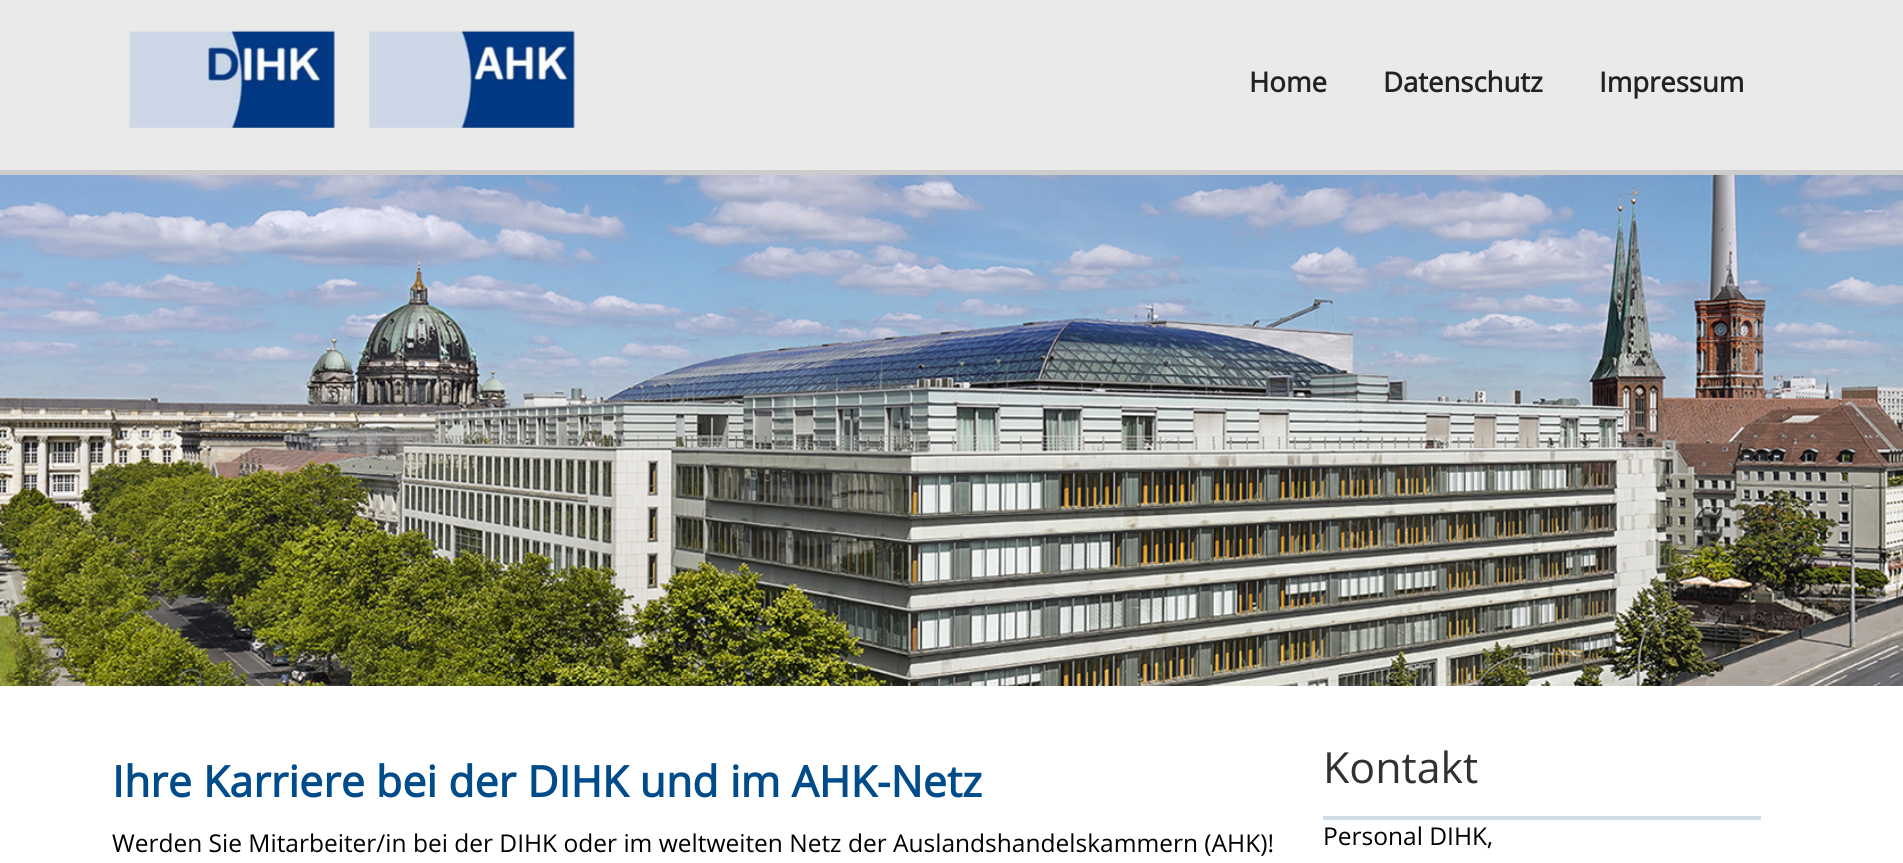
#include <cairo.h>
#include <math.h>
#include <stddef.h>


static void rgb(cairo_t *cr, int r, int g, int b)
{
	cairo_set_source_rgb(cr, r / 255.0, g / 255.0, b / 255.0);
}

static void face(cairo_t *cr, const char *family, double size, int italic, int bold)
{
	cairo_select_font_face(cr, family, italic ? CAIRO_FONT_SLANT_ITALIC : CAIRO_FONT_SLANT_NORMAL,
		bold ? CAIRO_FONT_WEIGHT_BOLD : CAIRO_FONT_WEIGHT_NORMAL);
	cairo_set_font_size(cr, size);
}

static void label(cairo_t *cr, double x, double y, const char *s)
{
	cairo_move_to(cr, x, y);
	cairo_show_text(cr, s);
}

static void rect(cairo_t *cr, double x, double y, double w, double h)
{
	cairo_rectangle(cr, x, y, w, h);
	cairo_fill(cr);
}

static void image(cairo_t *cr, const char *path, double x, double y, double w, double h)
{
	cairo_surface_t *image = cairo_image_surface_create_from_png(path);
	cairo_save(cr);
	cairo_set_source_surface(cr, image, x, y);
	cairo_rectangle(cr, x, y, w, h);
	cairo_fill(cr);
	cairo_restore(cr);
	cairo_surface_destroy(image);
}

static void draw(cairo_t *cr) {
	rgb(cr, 255, 255, 255);
	cairo_paint(cr);
	rgb(cr, 234, 234, 234);
	rect(cr, 0, 0, 1903, 170);
	rgb(cr, 204, 204, 204);
	rect(cr, 0, 170, 1903, 5);
	image(cr, "image0.png", 129, 30, 206, 98);
	image(cr, "image1.png", 369, 30, 206, 98);
	face(cr, "Open Sans", 27.5, 0, 1);
	rgb(cr, 34, 34, 34);
	label(cr, 1249, 92, "Home");
	label(cr, 1383, 92, "Datenschutz");
	label(cr, 1599, 92, "Impressum");
	image(cr, "image2.png", 0, 175, 1903, 511);
	face(cr, "Open Sans", 42.9, 0, 1);
	rgb(cr, 0, 75, 137);
	label(cr, 112, 797, "Ihre Karriere bei der DIHK und im AHK-Netz");
	face(cr, "Open Sans", 24.5, 0, 0);
	rgb(cr, 0, 0, 0);
	label(cr, 112, 852, "Werden Sie Mitarbeiter/in bei der DIHK oder im weltweiten Netz der Auslandshandelskammern (AHK)!");
	rgb(cr, 208, 220, 230);
	rect(cr, 1323, 816, 438, 4);
	face(cr, "Open Sans", 42.9, 0, 0);
	rgb(cr, 47, 49, 51);
	label(cr, 1323, 783, "Kontakt");
	face(cr, "Open Sans", 24.5, 0, 0);
	rgb(cr, 0, 0, 0);
	label(cr, 1323, 845, "Personal DIHK,");
}

int main(void) {
	cairo_surface_t *surface = cairo_image_surface_create(CAIRO_FORMAT_RGB24, 1903, 863);
	cairo_t *cr = cairo_create(surface);
	cairo_font_options_t *options = cairo_font_options_create();
	cairo_font_options_set_hint_metrics(options, CAIRO_HINT_METRICS_OFF);
	cairo_font_options_set_hint_style(options, CAIRO_HINT_STYLE_NONE);
	cairo_set_font_options(cr, options);
	cairo_set_miter_limit(cr, 4);
	draw(cr);
	cairo_surface_write_to_png(surface, "render.png");
	cairo_font_options_destroy(options);
	cairo_destroy(cr);
	cairo_surface_destroy(surface);
	return 0;
}
